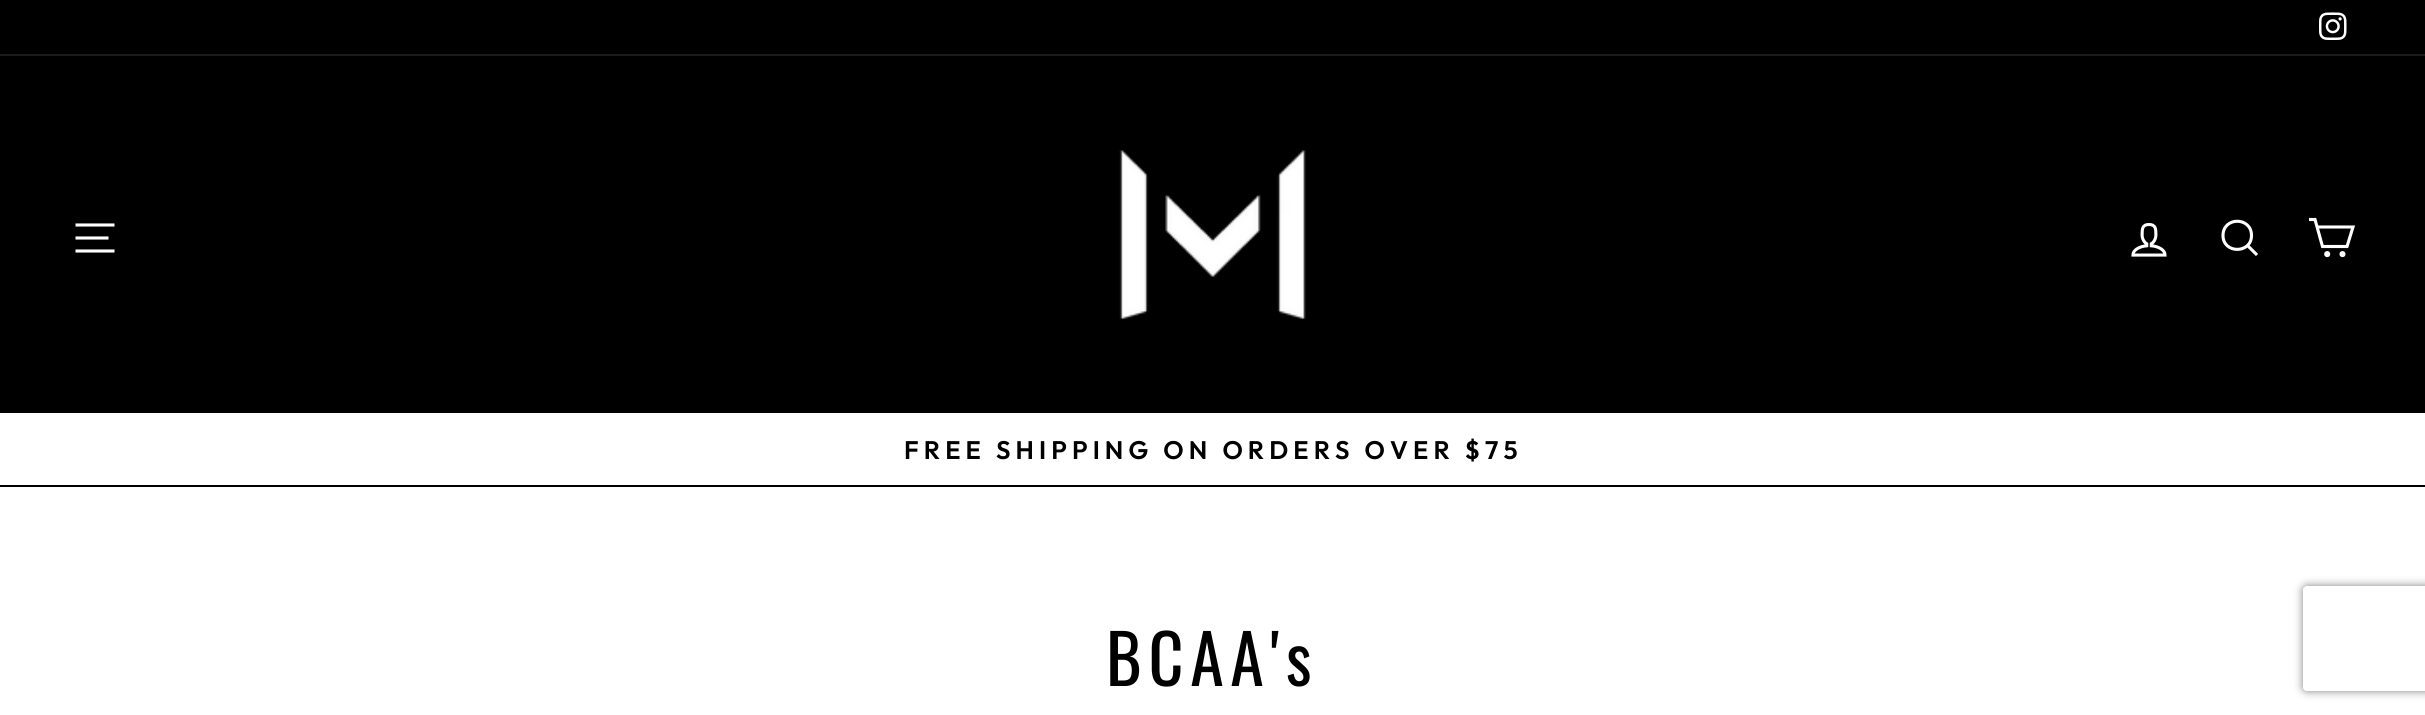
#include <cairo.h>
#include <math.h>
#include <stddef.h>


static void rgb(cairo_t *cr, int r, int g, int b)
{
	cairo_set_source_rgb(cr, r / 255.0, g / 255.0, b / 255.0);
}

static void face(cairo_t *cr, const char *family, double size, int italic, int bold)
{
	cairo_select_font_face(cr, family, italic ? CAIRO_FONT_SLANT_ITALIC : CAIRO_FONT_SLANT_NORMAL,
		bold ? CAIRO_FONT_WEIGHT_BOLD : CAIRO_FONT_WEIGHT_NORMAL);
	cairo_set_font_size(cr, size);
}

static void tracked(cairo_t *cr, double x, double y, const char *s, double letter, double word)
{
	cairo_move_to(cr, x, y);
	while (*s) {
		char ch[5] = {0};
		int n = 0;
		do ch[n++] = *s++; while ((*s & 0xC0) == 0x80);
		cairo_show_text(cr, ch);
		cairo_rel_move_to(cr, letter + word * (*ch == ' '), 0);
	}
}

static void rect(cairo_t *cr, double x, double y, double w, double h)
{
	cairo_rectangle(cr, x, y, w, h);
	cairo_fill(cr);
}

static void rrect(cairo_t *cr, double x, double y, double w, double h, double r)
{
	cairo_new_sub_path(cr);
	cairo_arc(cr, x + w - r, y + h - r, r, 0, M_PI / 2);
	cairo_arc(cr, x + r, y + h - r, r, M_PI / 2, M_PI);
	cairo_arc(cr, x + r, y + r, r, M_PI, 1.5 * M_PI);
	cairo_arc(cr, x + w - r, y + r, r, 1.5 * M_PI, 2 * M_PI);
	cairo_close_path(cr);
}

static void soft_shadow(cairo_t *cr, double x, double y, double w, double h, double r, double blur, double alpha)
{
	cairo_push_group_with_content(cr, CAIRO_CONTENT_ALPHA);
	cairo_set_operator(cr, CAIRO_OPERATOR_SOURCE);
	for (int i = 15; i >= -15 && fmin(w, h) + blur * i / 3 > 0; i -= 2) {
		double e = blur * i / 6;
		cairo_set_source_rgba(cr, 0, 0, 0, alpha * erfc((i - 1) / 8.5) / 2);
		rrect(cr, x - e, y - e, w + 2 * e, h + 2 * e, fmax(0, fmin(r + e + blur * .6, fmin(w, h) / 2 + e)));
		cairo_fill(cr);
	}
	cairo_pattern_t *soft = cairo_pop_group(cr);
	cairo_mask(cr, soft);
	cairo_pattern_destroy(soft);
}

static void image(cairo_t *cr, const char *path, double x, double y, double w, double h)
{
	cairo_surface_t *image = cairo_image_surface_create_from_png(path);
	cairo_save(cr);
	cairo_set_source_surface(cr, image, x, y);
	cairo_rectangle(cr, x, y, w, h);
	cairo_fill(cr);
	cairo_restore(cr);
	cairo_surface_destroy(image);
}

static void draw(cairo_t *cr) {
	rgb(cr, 255, 255, 255);
	cairo_paint(cr);
	rgb(cr, 0, 0, 0);
	rect(cr, 0, 0, 2425, 54);
	image(cr, "image0.png", 2319, 12, 28, 28);
	rect(cr, 0, 56, 2425, 357);
	rgb(cr, 26, 26, 26);
	rect(cr, 0, 54, 2425, 2);
	cairo_new_path(cr);
	cairo_move_to(cr, 75.5, 225);
	cairo_line_to(cr, 114.5, 225);
	cairo_move_to(cr, 75.5, 238);
	cairo_line_to(cr, 108.5, 238);
	cairo_move_to(cr, 75.5, 251);
	cairo_line_to(cr, 114.5, 251);
	rgb(cr, 255, 255, 255);
	cairo_set_line_width(cr, 3.1);
	cairo_stroke(cr);
	image(cr, "image1.png", 1119, 150, 187, 170);
	image(cr, "image2.png", 2131, 223, 36, 34);
	cairo_new_path(cr);
	cairo_move_to(cr, 2251.5, 235.5);
	cairo_curve_to(cr, 2251.5, 254, 2223, 254, 2223, 235.5);
	cairo_curve_to(cr, 2223, 216.5, 2251.5, 216.5, 2251.5, 235.5);
	cairo_close_path(cr);
	cairo_move_to(cr, 2257, 255);
	cairo_line_to(cr, 2247.5, 245.5);
	cairo_stroke(cr);
	cairo_new_path(cr);
	cairo_move_to(cr, 2317, 227);
	cairo_line_to(cr, 2353, 227);
	cairo_line_to(cr, 2347, 246.5);
	cairo_line_to(cr, 2322.5, 246.5);
	cairo_line_to(cr, 2315, 219.5);
	cairo_line_to(cr, 2309, 219.5);
	cairo_stroke(cr);
	cairo_arc(cr, 2327.2, 254.1, 1.5, 0, 2 * M_PI);
	cairo_stroke(cr);
	cairo_arc(cr, 2342.5, 254.1, 1.5, 0, 2 * M_PI);
	cairo_stroke(cr);
	rgb(cr, 0, 0, 0);
	rect(cr, 0, 485, 2425, 2);
	face(cr, "Outfit SemiBold", 25.4, 0, 0);
	tracked(cr, 904, 459, "FREE SHIPPING ON ORDERS OVER $75", 5.1, 0);
	face(cr, "Oswald", 68, 0, 0);
	tracked(cr, 1106, 686, "BCAA's", 6.75, 0);
	cairo_save(cr);
	cairo_set_fill_rule(cr, CAIRO_FILL_RULE_EVEN_ODD);
	cairo_new_path(cr);
	cairo_move_to(cr, 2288, 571);
	cairo_line_to(cr, 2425, 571);
	cairo_line_to(cr, 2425, 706);
	cairo_line_to(cr, 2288, 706);
	cairo_close_path(cr);
	cairo_move_to(cr, 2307, 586);
	cairo_line_to(cr, 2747, 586);
	cairo_curve_to(cr, 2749, 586, 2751, 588, 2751, 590);
	cairo_line_to(cr, 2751, 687);
	cairo_curve_to(cr, 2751, 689, 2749, 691, 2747, 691);
	cairo_line_to(cr, 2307, 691);
	cairo_curve_to(cr, 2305, 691, 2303, 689, 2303, 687);
	cairo_line_to(cr, 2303, 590);
	cairo_curve_to(cr, 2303, 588, 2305, 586, 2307, 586);
	cairo_close_path(cr);
	cairo_clip(cr);
	rgb(cr, 128, 128, 128);
	soft_shadow(cr, 2303, 586, 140, 105, 4, 4.5, 1);
	cairo_restore(cr);
}

int main(void) {
	cairo_surface_t *surface = cairo_image_surface_create(CAIRO_FORMAT_RGB24, 2425, 715);
	cairo_t *cr = cairo_create(surface);
	cairo_font_options_t *options = cairo_font_options_create();
	cairo_font_options_set_hint_metrics(options, CAIRO_HINT_METRICS_OFF);
	cairo_font_options_set_hint_style(options, CAIRO_HINT_STYLE_NONE);
	cairo_set_font_options(cr, options);
	cairo_set_miter_limit(cr, 4);
	draw(cr);
	cairo_surface_write_to_png(surface, "render.png");
	cairo_font_options_destroy(options);
	cairo_destroy(cr);
	cairo_surface_destroy(surface);
	return 0;
}
